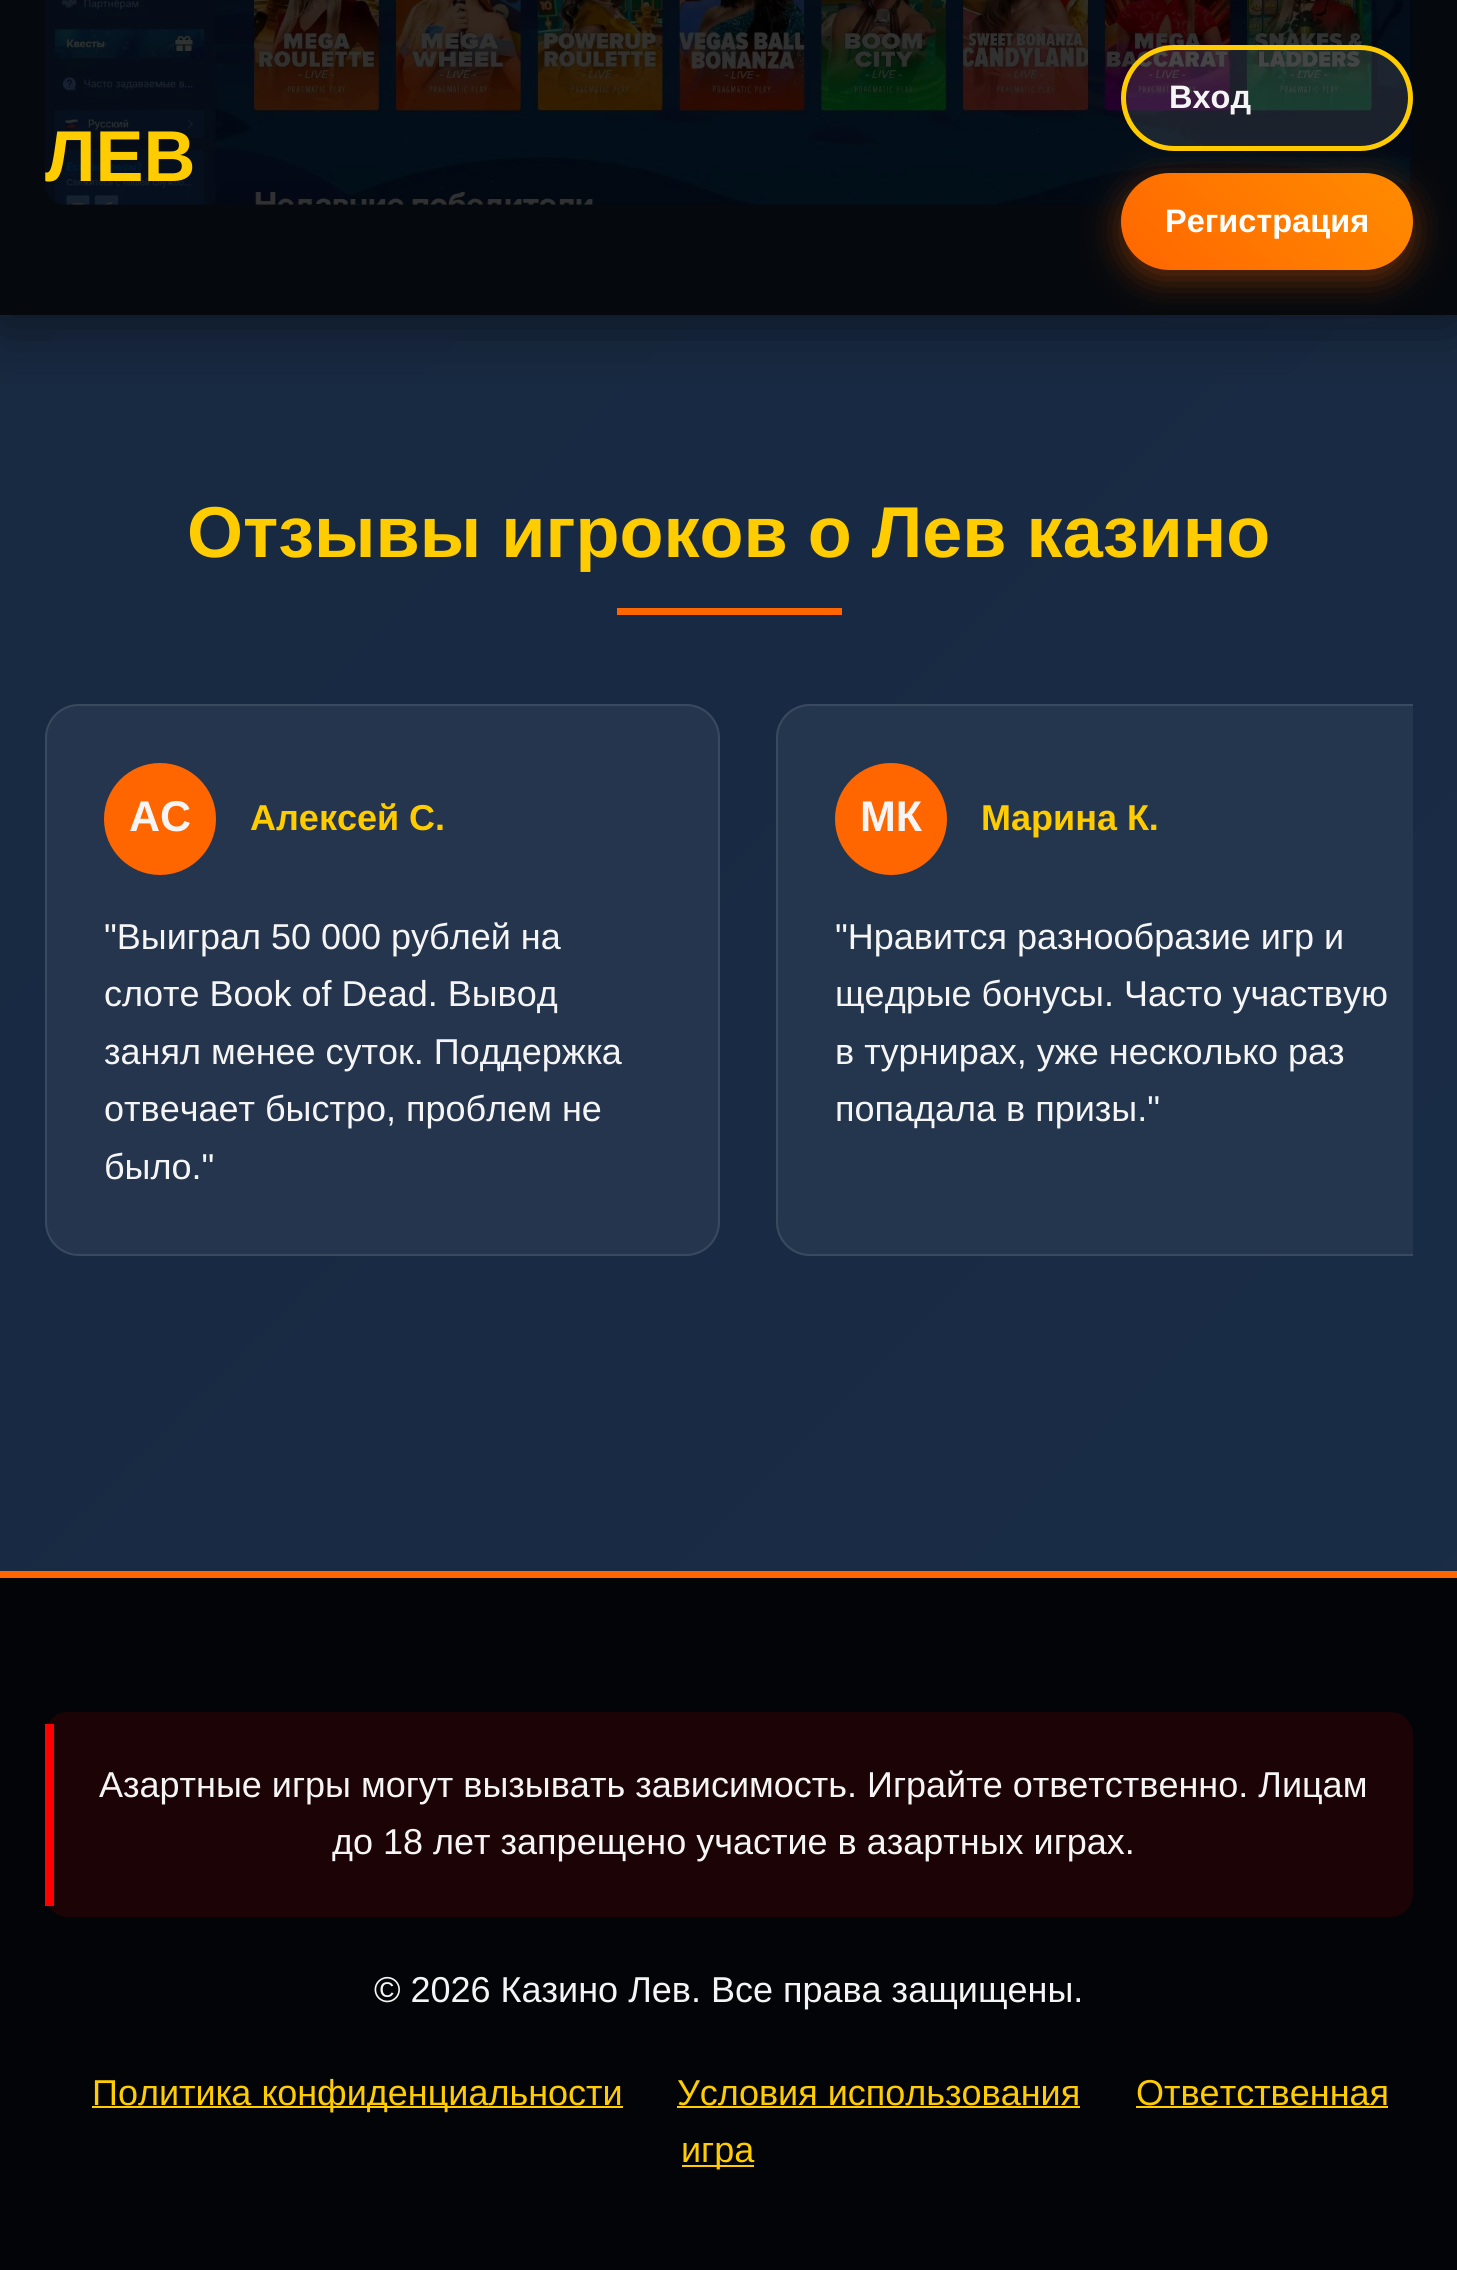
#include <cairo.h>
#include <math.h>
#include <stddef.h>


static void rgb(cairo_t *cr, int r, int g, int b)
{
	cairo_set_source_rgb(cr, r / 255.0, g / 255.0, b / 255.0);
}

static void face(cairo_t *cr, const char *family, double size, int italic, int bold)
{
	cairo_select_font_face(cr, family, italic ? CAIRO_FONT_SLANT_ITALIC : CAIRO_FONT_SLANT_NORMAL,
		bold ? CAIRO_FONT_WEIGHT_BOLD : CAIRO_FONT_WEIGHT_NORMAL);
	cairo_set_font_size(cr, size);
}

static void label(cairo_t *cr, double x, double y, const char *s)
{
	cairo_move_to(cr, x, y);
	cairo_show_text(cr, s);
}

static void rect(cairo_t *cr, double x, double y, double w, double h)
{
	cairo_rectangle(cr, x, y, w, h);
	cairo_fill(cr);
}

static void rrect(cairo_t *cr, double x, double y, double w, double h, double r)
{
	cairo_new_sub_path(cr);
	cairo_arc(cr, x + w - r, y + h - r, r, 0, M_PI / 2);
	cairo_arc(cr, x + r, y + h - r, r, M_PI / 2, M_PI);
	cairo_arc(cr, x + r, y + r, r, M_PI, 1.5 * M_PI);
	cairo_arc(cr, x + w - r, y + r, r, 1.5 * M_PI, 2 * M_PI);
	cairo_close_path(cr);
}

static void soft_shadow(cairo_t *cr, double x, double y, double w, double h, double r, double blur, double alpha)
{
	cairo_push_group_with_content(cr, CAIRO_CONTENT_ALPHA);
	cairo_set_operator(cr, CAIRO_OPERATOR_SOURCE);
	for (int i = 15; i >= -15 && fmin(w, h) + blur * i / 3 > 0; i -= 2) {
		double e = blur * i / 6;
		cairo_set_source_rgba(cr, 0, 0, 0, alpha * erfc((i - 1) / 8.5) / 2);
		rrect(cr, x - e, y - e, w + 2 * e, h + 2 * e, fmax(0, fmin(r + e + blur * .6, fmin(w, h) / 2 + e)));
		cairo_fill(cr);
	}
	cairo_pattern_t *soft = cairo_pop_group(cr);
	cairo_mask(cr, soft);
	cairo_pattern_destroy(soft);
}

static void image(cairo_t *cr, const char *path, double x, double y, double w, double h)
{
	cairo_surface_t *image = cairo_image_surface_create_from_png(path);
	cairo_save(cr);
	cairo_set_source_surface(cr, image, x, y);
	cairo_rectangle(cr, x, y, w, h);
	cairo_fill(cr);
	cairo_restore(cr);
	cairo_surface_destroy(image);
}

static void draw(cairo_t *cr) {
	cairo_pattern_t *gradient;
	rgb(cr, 255, 255, 255);
	cairo_paint(cr);
	gradient = cairo_pattern_create_linear(-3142, -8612, 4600, -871);
	cairo_pattern_add_color_stop_rgba(gradient, 0, 0.059, 0.106, 0.18, 1);
	cairo_pattern_add_color_stop_rgba(gradient, 1, 0.102, 0.176, 0.278, 1);
	cairo_set_source(cr, gradient);
	cairo_pattern_destroy(gradient);
	rect(cr, 0, 315, 1457, 1256);
	gradient = cairo_pattern_create_linear(-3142, -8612, 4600, -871);
	cairo_pattern_add_color_stop_rgba(gradient, 0, 0.012, 0.02, 0.035, 1);
	cairo_pattern_add_color_stop_rgba(gradient, 1, 0.02, 0.035, 0.055, 1);
	cairo_set_source(cr, gradient);
	cairo_pattern_destroy(gradient);
	rect(cr, 0, 0, 1457, 315);
	gradient = cairo_pattern_create_linear(-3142, -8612, 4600, -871);
	cairo_pattern_add_color_stop_rgba(gradient, 0, 0.004, 0.012, 0.02, 1);
	cairo_pattern_add_color_stop_rgba(gradient, 1, 0.012, 0.016, 0.027, 1);
	cairo_set_source(cr, gradient);
	cairo_pattern_destroy(gradient);
	rect(cr, 0, 1578, 1457, 692);
	image(cr, "image0.png", 45, 0, 1368, 205);
	cairo_save(cr);
	cairo_rectangle(cr, 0, 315, 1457, 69);
	cairo_clip(cr);
	rgb(cr, 0, 0, 0);
	soft_shadow(cr, 0, 9, 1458, 315, 0, 34, 0.5);
	cairo_restore(cr);
	face(cr, "Liberation Sans", 72, 0, 1);
	rgb(cr, 255, 204, 0);
	label(cr, 45, 181, "ЛЕВ");
	cairo_set_source_rgba(cr, 1, 1, 1, 0.1);
	rrect(cr, 1123.5, 47.5, 287, 101, 50.5);
	cairo_fill_preserve(cr);
	rgb(cr, 255, 204, 0);
	cairo_set_line_width(cr, 5);
	cairo_stroke(cr);
	face(cr, "Liberation Sans", 32.5, 0, 1);
	rgb(cr, 245, 245, 245);
	label(cr, 1169, 108, "Вход");
	rgb(cr, 255, 102, 0);
	soft_shadow(cr, 1121, 182, 292, 97, 48.5, 17, 0.4);
	gradient = cairo_pattern_create_linear(1169, 319, 1364, 124);
	cairo_pattern_add_color_stop_rgba(gradient, 0, 1, 0.4, 0, 1);
	cairo_pattern_add_color_stop_rgba(gradient, 1, 1, 0.549, 0, 1);
	cairo_set_source(cr, gradient);
	cairo_pattern_destroy(gradient);
	rrect(cr, 1121, 173, 292, 97, 48.5);
	cairo_fill(cr);
	rgb(cr, 255, 255, 255);
	label(cr, 1165, 232, "Регистрация");
	face(cr, "Liberation Sans", 72, 0, 1);
	rgb(cr, 255, 204, 0);
	label(cr, 187, 557, "Отзывы игроков о Лев казино");
	rgb(cr, 255, 102, 0);
	rect(cr, 617, 608, 225, 7);
	rgb(cr, 36, 53, 77);
	rrect(cr, 45, 704, 675, 552, 34);
	cairo_fill(cr);
	rrect(cr, 46, 705, 673, 550, 33);
	cairo_set_source_rgba(cr, 1, 1, 1, 0.1);
	cairo_set_line_width(cr, 2);
	cairo_stroke(cr);
	rgb(cr, 255, 102, 0);
	cairo_arc(cr, 160, 819, 56, 0, 2 * M_PI);
	cairo_fill(cr);
	face(cr, "Liberation Sans", 43, 0, 1);
	rgb(cr, 245, 245, 245);
	label(cr, 129, 831, "АС");
	face(cr, "Liberation Sans", 36, 0, 1);
	rgb(cr, 255, 204, 0);
	label(cr, 250, 830, "Алексей С.");
	face(cr, "Liberation Sans", 36, 0, 0);
	rgb(cr, 245, 245, 245);
	label(cr, 104, 949, "\"Выиграл 50 000 рублей на");
	label(cr, 104, 1006, "слоте Book of Dead. Вывод");
	label(cr, 104, 1064, "занял менее суток. Поддержка");
	label(cr, 104, 1121, "отвечает быстро, проблем не");
	label(cr, 104, 1179, "было.\"");
	rgb(cr, 36, 54, 77);
	cairo_new_path(cr);
	cairo_move_to(cr, 810, 704);
	cairo_line_to(cr, 1413, 704);
	cairo_line_to(cr, 1413, 1256);
	cairo_line_to(cr, 810, 1256);
	cairo_curve_to(cr, 791, 1256, 776, 1241, 776, 1222);
	cairo_line_to(cr, 776, 738);
	cairo_curve_to(cr, 776, 719, 791, 704, 810, 704);
	cairo_close_path(cr);
	cairo_fill(cr);
	cairo_save(cr);
	cairo_rectangle(cr, 45, 659, 1368, 642);
	cairo_clip(cr);
	rrect(cr, 777, 705, 673, 550, 33);
	cairo_set_source_rgba(cr, 1, 1, 1, 0.1);
	cairo_stroke(cr);
	cairo_restore(cr);
	rgb(cr, 255, 102, 0);
	cairo_arc(cr, 891, 819, 56, 0, 2 * M_PI);
	cairo_fill(cr);
	face(cr, "Liberation Sans", 43, 0, 1);
	rgb(cr, 245, 245, 245);
	label(cr, 860, 831, "МК");
	face(cr, "Liberation Sans", 36, 0, 1);
	rgb(cr, 255, 204, 0);
	label(cr, 981, 830, "Марина К.");
	face(cr, "Liberation Sans", 36, 0, 0);
	rgb(cr, 245, 245, 245);
	label(cr, 835, 949, "\"Нравится разнообразие игр и");
	label(cr, 835, 1006, "щедрые бонусы. Часто участвую");
	label(cr, 835, 1064, "в турнирах, уже несколько раз");
	label(cr, 835, 1121, "попадала в призы.\"");
	rgb(cr, 255, 102, 0);
	rect(cr, 0, 1571, 1457, 7);
	rgb(cr, 28, 4, 6);
	rrect(cr, 45, 1712, 1368, 205, 23);
	cairo_fill(cr);
	rgb(cr, 255, 0, 0);
	rect(cr, 45, 1724, 9, 182);
	rgb(cr, 245, 245, 245);
	label(cr, 99, 1797, "Азартные игры могут вызывать зависимость. Играйте ответственно. Лицам");
	label(cr, 332, 1854, "до 18 лет запрещено участие в азартных играх.");
	label(cr, 374, 2002, "© 2026 Казино Лев. Все права защищены.");
	rgb(cr, 255, 204, 0);
	rect(cr, 92, 2106, 531, 2);
	label(cr, 92, 2105, "Политика конфиденциальности");
	label(cr, 677, 2105, "Условия использования");
	rect(cr, 677, 2106, 403, 2);
	label(cr, 1136, 2105, "Ответственная");
	rect(cr, 1136, 2106, 252, 2);
	rect(cr, 682, 2165, 72, 2);
	label(cr, 681, 2162, "игра");
}

int main(void) {
	cairo_surface_t *surface = cairo_image_surface_create(CAIRO_FORMAT_RGB24, 1457, 2270);
	cairo_t *cr = cairo_create(surface);
	cairo_font_options_t *options = cairo_font_options_create();
	cairo_font_options_set_hint_metrics(options, CAIRO_HINT_METRICS_OFF);
	cairo_font_options_set_hint_style(options, CAIRO_HINT_STYLE_NONE);
	cairo_set_font_options(cr, options);
	cairo_set_miter_limit(cr, 4);
	draw(cr);
	cairo_surface_write_to_png(surface, "render.png");
	cairo_font_options_destroy(options);
	cairo_destroy(cr);
	cairo_surface_destroy(surface);
	return 0;
}
